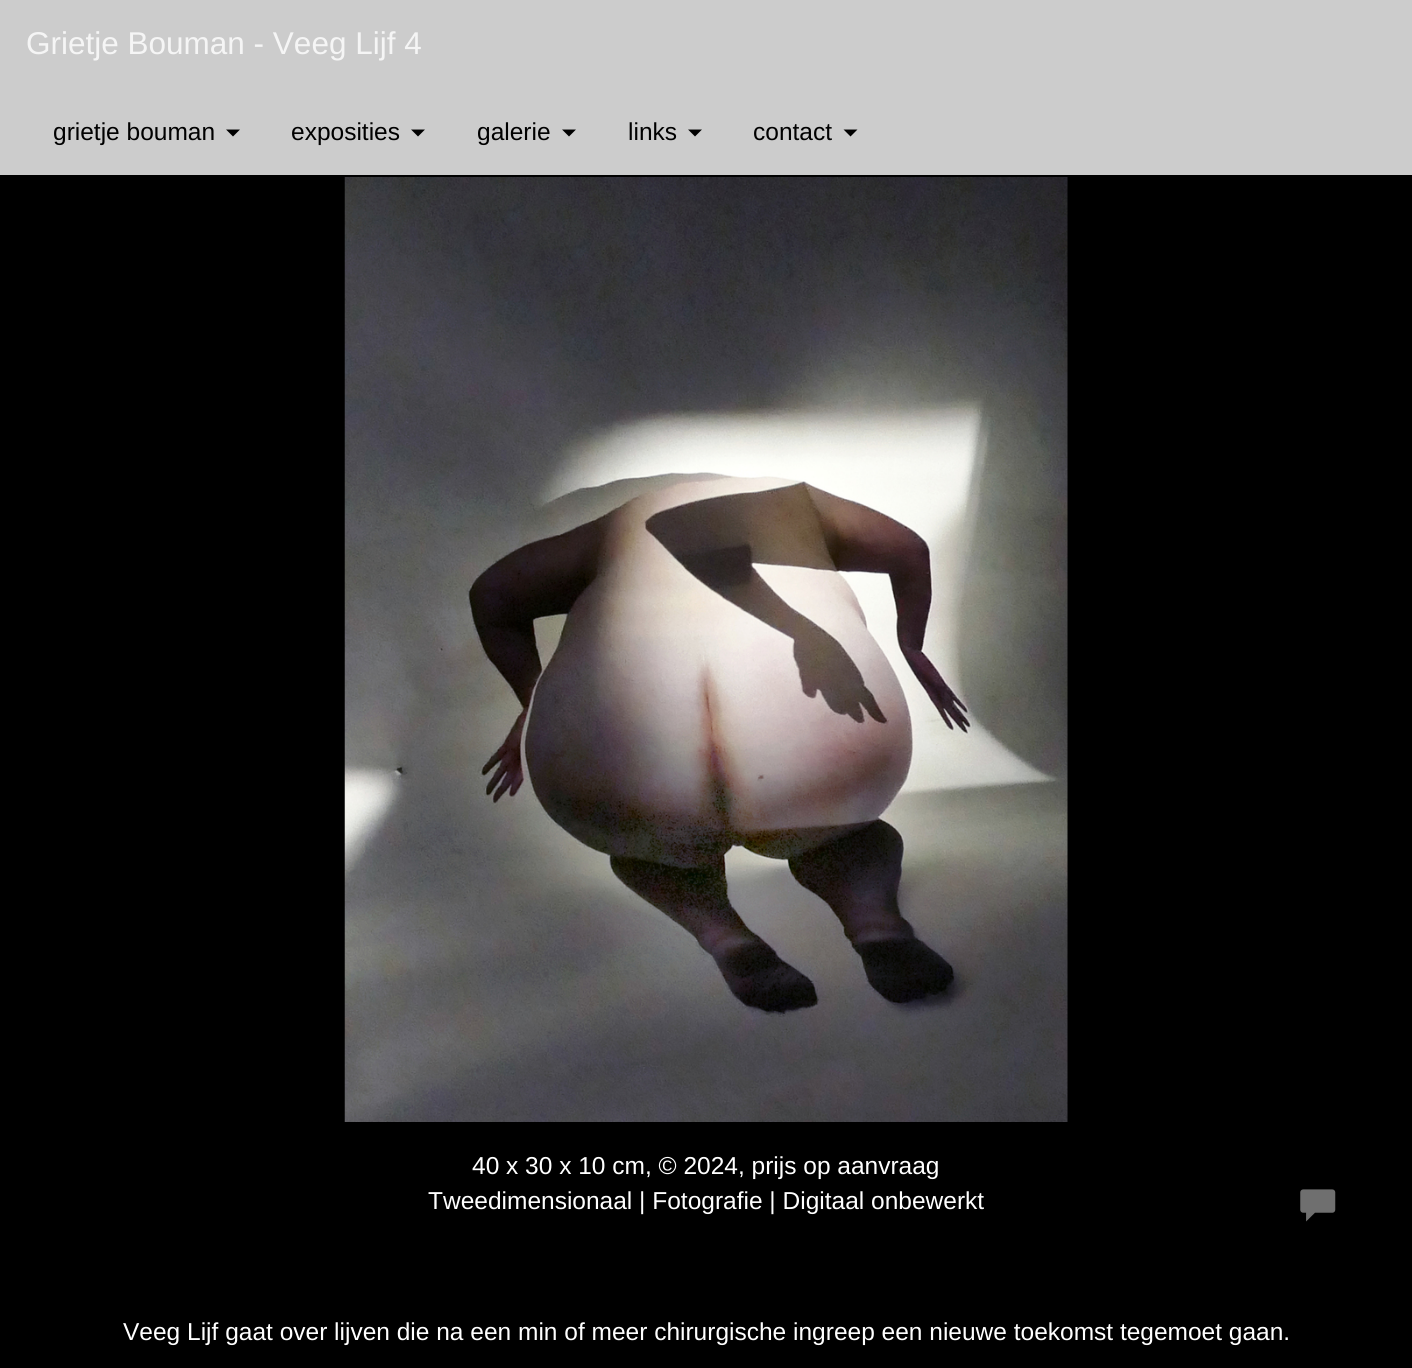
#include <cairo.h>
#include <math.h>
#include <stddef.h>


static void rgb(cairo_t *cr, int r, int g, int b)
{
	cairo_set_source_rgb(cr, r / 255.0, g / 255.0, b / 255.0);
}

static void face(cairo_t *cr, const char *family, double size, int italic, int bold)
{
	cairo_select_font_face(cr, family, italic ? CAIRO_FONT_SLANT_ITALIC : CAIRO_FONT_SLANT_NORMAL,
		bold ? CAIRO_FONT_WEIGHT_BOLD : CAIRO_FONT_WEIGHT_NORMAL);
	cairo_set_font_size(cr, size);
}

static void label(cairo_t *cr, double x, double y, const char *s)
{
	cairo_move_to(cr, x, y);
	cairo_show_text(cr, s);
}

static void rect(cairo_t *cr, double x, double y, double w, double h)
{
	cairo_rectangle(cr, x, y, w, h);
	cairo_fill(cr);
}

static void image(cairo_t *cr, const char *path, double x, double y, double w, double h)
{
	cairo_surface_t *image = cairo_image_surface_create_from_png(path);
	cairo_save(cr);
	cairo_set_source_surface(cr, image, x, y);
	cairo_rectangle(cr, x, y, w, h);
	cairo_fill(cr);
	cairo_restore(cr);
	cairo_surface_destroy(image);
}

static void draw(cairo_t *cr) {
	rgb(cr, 0, 0, 0);
	cairo_paint(cr);
	rgb(cr, 204, 204, 204);
	rect(cr, 0, 0, 1412, 175);
	face(cr, "Liberation Sans", 31.5, 0, 0);
	rgb(cr, 245, 245, 245);
	label(cr, 26, 54, "Grietje Bouman - Veeg Lijf 4");
	face(cr, "Liberation Sans", 24.5, 0, 0);
	rgb(cr, 0, 0, 0);
	label(cr, 53, 140, "grietje bouman");
	cairo_new_path(cr);
	cairo_move_to(cr, 226, 129.5);
	cairo_line_to(cr, 240, 129.5);
	cairo_line_to(cr, 233, 136.5);
	cairo_close_path(cr);
	cairo_fill(cr);
	label(cr, 291, 140, "exposities");
	cairo_new_path(cr);
	cairo_move_to(cr, 411, 129.5);
	cairo_line_to(cr, 425, 129.5);
	cairo_line_to(cr, 418, 136.5);
	cairo_close_path(cr);
	cairo_fill(cr);
	label(cr, 477, 140, "galerie");
	cairo_new_path(cr);
	cairo_move_to(cr, 562, 129.5);
	cairo_line_to(cr, 576, 129.5);
	cairo_line_to(cr, 569, 136.5);
	cairo_close_path(cr);
	cairo_fill(cr);
	label(cr, 628, 140, "links");
	cairo_new_path(cr);
	cairo_move_to(cr, 688, 129.5);
	cairo_line_to(cr, 702, 129.5);
	cairo_line_to(cr, 695, 136.5);
	cairo_close_path(cr);
	cairo_fill(cr);
	label(cr, 753, 140, "contact");
	cairo_new_path(cr);
	cairo_move_to(cr, 843.5, 129.5);
	cairo_line_to(cr, 857.5, 129.5);
	cairo_line_to(cr, 850.5, 136.5);
	cairo_close_path(cr);
	cairo_fill(cr);
	image(cr, "image0.png", 344, 177, 724, 945);
	rgb(cr, 255, 255, 255);
	label(cr, 472, 1174, "40 x 30 x 10 cm, © 2024, prijs op aanvraag");
	label(cr, 428, 1209, "Tweedimensionaal | Fotografie | Digitaal onbewerkt");
	image(cr, "image1.png", 1300, 1189, 36, 33);
	label(cr, 123, 1340, "Veeg Lijf gaat over lijven die na een min of meer chirurgische ingreep een nieuwe toekomst tegemoet gaan.");
}

int main(void) {
	cairo_surface_t *surface = cairo_image_surface_create(CAIRO_FORMAT_RGB24, 1412, 1368);
	cairo_t *cr = cairo_create(surface);
	cairo_font_options_t *options = cairo_font_options_create();
	cairo_font_options_set_hint_metrics(options, CAIRO_HINT_METRICS_OFF);
	cairo_font_options_set_hint_style(options, CAIRO_HINT_STYLE_NONE);
	cairo_set_font_options(cr, options);
	cairo_set_miter_limit(cr, 4);
	draw(cr);
	cairo_surface_write_to_png(surface, "render.png");
	cairo_font_options_destroy(options);
	cairo_destroy(cr);
	cairo_surface_destroy(surface);
	return 0;
}
